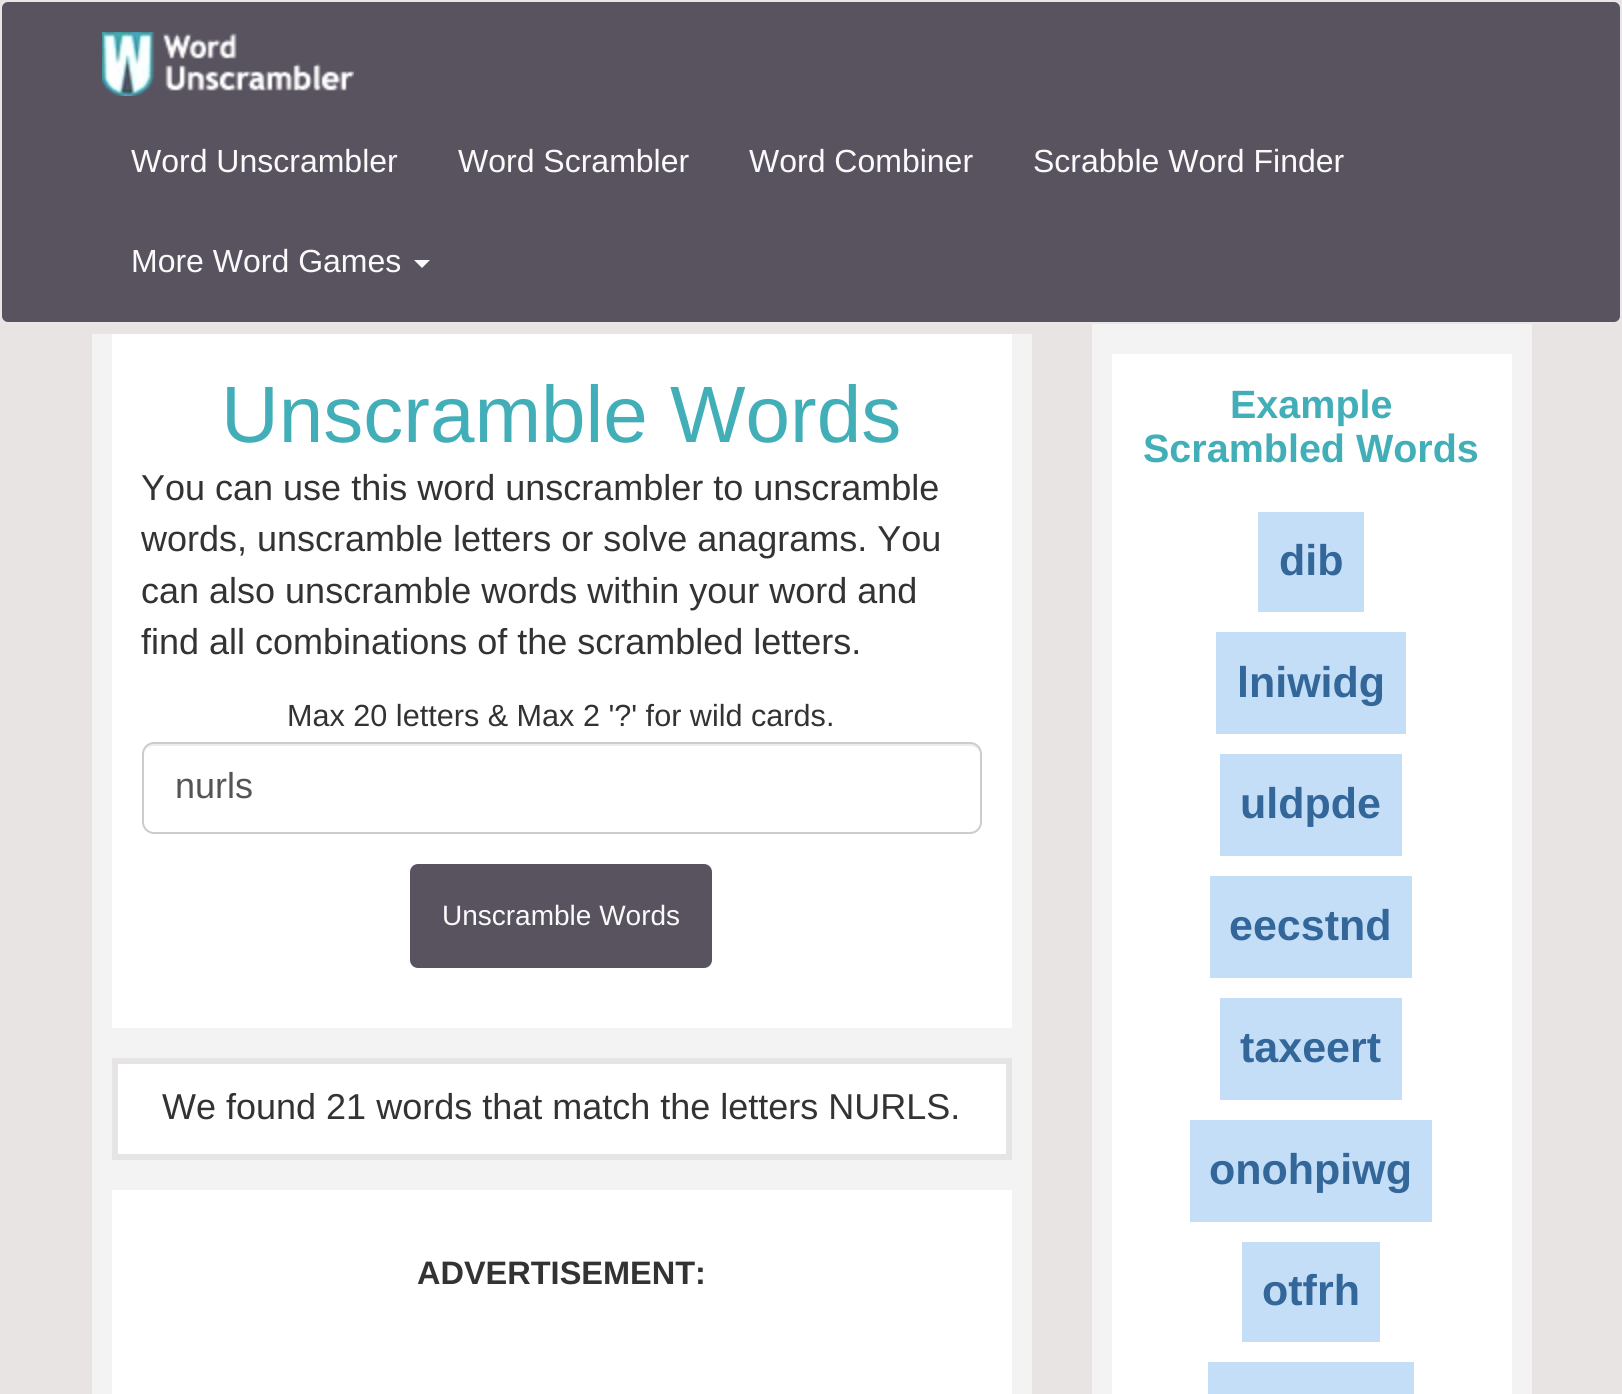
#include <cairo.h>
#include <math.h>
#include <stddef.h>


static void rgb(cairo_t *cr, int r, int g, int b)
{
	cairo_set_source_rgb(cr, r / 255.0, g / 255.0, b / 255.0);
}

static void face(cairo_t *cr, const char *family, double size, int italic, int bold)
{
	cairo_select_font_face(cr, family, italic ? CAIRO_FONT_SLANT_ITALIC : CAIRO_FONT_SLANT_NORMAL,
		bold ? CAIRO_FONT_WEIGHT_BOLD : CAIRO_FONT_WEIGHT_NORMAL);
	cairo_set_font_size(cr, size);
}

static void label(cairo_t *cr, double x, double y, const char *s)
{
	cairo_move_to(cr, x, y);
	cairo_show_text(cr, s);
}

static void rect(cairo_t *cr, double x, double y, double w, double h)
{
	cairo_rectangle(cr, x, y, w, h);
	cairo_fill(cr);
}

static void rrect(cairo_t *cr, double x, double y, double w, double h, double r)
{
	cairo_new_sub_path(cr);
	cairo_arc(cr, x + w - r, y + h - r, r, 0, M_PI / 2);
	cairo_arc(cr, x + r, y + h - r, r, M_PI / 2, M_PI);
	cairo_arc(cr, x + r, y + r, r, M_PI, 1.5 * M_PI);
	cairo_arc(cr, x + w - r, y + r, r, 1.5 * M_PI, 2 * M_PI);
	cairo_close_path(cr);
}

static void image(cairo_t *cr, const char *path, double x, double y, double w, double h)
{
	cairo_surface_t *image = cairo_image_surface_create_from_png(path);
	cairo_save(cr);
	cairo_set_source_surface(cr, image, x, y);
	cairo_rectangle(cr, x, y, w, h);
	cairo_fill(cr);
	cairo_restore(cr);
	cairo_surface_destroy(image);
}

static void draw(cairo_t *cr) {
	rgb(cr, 233, 228, 228);
	cairo_paint(cr);
	rgb(cr, 89, 83, 96);
	rrect(cr, 1, 1, 1620, 322, 7);
	cairo_fill_preserve(cr);
	rgb(cr, 231, 231, 231);
	cairo_stroke(cr);
	image(cr, "image0.png", 102, 32, 252, 64);
	face(cr, "Liberation Sans", 32, 0, 0);
	rgb(cr, 250, 250, 250);
	label(cr, 131, 172, "Word Unscrambler");
	label(cr, 458, 172, "Word Scrambler");
	label(cr, 749, 172, "Word Combiner");
	label(cr, 1033, 172, "Scrabble Word Finder");
	label(cr, 131, 272, "More Word Games");
	cairo_new_path(cr);
	cairo_move_to(cr, 414, 260);
	cairo_line_to(cr, 430, 260);
	cairo_line_to(cr, 422, 268);
	cairo_close_path(cr);
	cairo_fill(cr);
	rgb(cr, 243, 243, 243);
	rect(cr, 92, 334, 940, 1060);
	rgb(cr, 255, 255, 255);
	rect(cr, 112, 334, 900, 694);
	face(cr, "Liberation Sans", 80, 0, 0);
	rgb(cr, 65, 174, 184);
	label(cr, 221, 442, "Unscramble Words");
	face(cr, "Liberation Sans", 36, 0, 0);
	rgb(cr, 51, 51, 51);
	label(cr, 141, 500, "You can use this word unscrambler to unscramble");
	label(cr, 141, 551, "words, unscramble letters or solve anagrams. You");
	label(cr, 141, 603, "can also unscramble words within your word and");
	label(cr, 141, 654, "find all combinations of the scrambled letters.");
	face(cr, "Liberation Sans", 30.6, 0, 0);
	label(cr, 287, 726, "Max 20 letters & Max 2 '?' for wild cards.");
	rgb(cr, 236, 236, 236);
	cairo_new_path(cr);
	cairo_move_to(cr, 154, 746);
	cairo_line_to(cr, 970, 746);
	cairo_curve_to(cr, 976, 746, 980, 750, 980, 756);
	cairo_curve_to(cr, 980, 750, 977, 744, 970, 744);
	cairo_line_to(cr, 154, 744);
	cairo_curve_to(cr, 147, 744, 144, 750, 144, 756);
	cairo_curve_to(cr, 144, 750, 148, 746, 154, 746);
	cairo_close_path(cr);
	cairo_fill(cr);
	rrect(cr, 143, 743, 838, 90, 11);
	rgb(cr, 204, 204, 204);
	cairo_stroke(cr);
	face(cr, "Liberation Sans", 36, 0, 0);
	rgb(cr, 85, 85, 85);
	label(cr, 175, 798, "nurls");
	rgb(cr, 89, 83, 96);
	rrect(cr, 411, 865, 300, 102, 7);
	cairo_fill_preserve(cr);
	cairo_stroke(cr);
	face(cr, "Liberation Sans", 28, 0, 0);
	rgb(cr, 250, 250, 250);
	label(cr, 442, 925, "Unscramble Words");
	rgb(cr, 255, 255, 255);
	cairo_rectangle(cr, 115, 1061, 894, 96);
	cairo_fill_preserve(cr);
	rgb(cr, 230, 228, 228);
	cairo_set_line_width(cr, 6);
	cairo_stroke(cr);
	face(cr, "Liberation Sans", 36, 0, 0);
	rgb(cr, 51, 51, 51);
	label(cr, 162, 1119, "We found 21 words that match the letters NURLS.");
	rgb(cr, 255, 255, 255);
	rect(cr, 112, 1190, 900, 204);
	face(cr, "Liberation Sans", 32.5, 0, 1);
	rgb(cr, 51, 51, 51);
	label(cr, 417, 1284, "ADVERTISEMENT:");
	rgb(cr, 243, 243, 243);
	rect(cr, 1092, 324, 440, 1070);
	rgb(cr, 255, 255, 255);
	rect(cr, 1112, 354, 400, 1040);
	face(cr, "Liberation Sans", 39.5, 0, 1);
	rgb(cr, 65, 174, 184);
	label(cr, 1230, 418, "Example");
	label(cr, 1143, 462, "Scrambled Words");
	rgb(cr, 196, 222, 248);
	rect(cr, 1258, 512, 106, 100);
	face(cr, "Liberation Sans", 43, 0, 1);
	rgb(cr, 51, 102, 153);
	label(cr, 1279, 575, "dib");
	rgb(cr, 196, 222, 248);
	rect(cr, 1216, 632, 190, 102);
	rgb(cr, 51, 102, 153);
	label(cr, 1237, 697, "lniwidg");
	rgb(cr, 196, 222, 248);
	rect(cr, 1220, 754, 182, 102);
	rgb(cr, 51, 102, 153);
	label(cr, 1240, 818, "uldpde");
	rgb(cr, 196, 222, 248);
	rect(cr, 1210, 876, 202, 102);
	rgb(cr, 51, 102, 153);
	label(cr, 1229, 940, "eecstnd");
	rgb(cr, 196, 222, 248);
	rect(cr, 1220, 998, 182, 102);
	rgb(cr, 51, 102, 153);
	label(cr, 1240, 1062, "taxeert");
	rgb(cr, 196, 222, 248);
	rect(cr, 1190, 1120, 242, 102);
	rgb(cr, 51, 102, 153);
	label(cr, 1209, 1184, "onohpiwg");
	rgb(cr, 196, 222, 248);
	rect(cr, 1242, 1242, 138, 100);
	rgb(cr, 51, 102, 153);
	label(cr, 1262, 1305, "otfrh");
	rgb(cr, 196, 222, 248);
	rect(cr, 1208, 1362, 206, 32);
}

int main(void) {
	cairo_surface_t *surface = cairo_image_surface_create(CAIRO_FORMAT_RGB24, 1622, 1394);
	cairo_t *cr = cairo_create(surface);
	cairo_font_options_t *options = cairo_font_options_create();
	cairo_font_options_set_hint_metrics(options, CAIRO_HINT_METRICS_OFF);
	cairo_font_options_set_hint_style(options, CAIRO_HINT_STYLE_NONE);
	cairo_set_font_options(cr, options);
	cairo_set_miter_limit(cr, 4);
	draw(cr);
	cairo_surface_write_to_png(surface, "render.png");
	cairo_font_options_destroy(options);
	cairo_destroy(cr);
	cairo_surface_destroy(surface);
	return 0;
}
